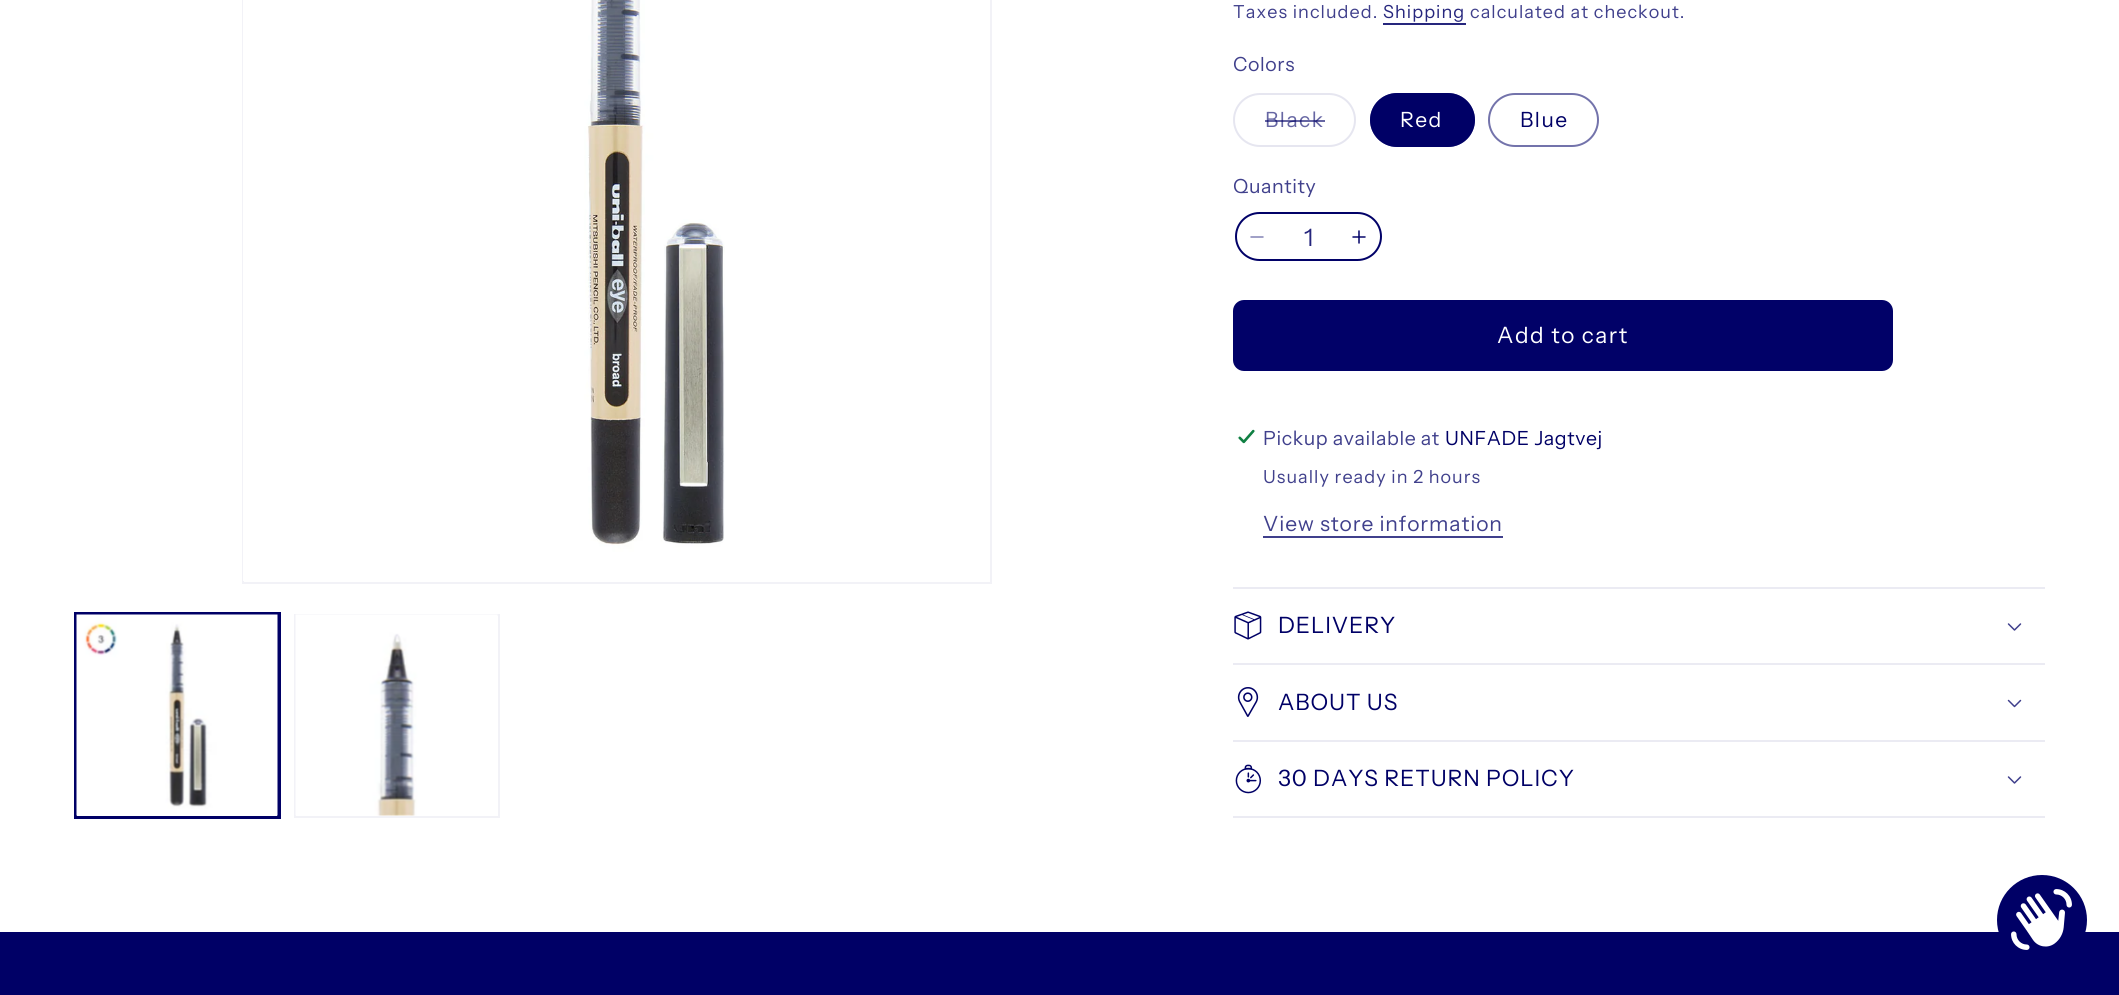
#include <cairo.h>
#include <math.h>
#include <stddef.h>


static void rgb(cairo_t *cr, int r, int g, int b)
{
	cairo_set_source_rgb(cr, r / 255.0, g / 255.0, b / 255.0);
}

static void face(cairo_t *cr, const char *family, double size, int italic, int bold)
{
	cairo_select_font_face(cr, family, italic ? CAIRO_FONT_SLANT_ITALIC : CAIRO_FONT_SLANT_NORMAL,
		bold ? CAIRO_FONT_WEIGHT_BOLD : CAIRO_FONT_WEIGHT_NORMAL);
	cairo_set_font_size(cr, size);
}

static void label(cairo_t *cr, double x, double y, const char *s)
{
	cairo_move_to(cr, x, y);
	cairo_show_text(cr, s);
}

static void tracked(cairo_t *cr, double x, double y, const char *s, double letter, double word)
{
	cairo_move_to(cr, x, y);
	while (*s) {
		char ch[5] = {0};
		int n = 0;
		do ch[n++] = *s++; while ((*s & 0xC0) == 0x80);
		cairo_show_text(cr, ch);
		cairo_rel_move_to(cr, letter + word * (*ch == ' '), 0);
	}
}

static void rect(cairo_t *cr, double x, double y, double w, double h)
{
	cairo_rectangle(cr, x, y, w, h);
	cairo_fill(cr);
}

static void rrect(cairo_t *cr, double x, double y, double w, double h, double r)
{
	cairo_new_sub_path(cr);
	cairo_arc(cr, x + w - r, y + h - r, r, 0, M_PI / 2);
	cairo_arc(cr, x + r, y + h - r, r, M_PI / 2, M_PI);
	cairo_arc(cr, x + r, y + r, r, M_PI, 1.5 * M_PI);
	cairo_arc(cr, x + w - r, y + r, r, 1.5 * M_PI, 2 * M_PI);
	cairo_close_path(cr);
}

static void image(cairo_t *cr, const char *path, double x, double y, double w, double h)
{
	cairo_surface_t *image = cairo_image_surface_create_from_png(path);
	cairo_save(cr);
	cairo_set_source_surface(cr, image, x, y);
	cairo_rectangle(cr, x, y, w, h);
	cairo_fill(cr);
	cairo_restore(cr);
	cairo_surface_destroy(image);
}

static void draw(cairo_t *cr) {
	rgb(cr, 255, 255, 255);
	cairo_paint(cr);
	cairo_rectangle(cr, 243, -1, 748, 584);
	rgb(cr, 242, 242, 247);
	cairo_stroke(cr);
	image(cr, "image0.png", 243, 0, 482, 581);
	cairo_rectangle(cr, 75, 613, 205, 205);
	rgb(cr, 0, 0, 102);
	cairo_stroke(cr);
	cairo_rectangle(cr, 76, 615, 202, 202);
	cairo_stroke(cr);
	image(cr, "image1.png", 76, 614, 202, 202);
	cairo_rectangle(cr, 295, 615, 204, 202);
	rgb(cr, 242, 242, 247);
	cairo_stroke(cr);
	image(cr, "image2.png", 295, 614, 203, 202);
	face(cr, "Instrument Sans", 18, 0, 0);
	rgb(cr, 64, 64, 140);
	tracked(cr, 1233, 18, "Taxes included.", 1.05, 0);
	rgb(cr, 38, 38, 125);
	tracked(cr, 1383, 18, "Shipping", 1.05, 0);
	rect(cr, 1383, 23, 83, 2);
	rgb(cr, 64, 64, 140);
	tracked(cr, 1470, 18, "calculated at checkout.", 1.05, 0);
	face(cr, "Instrument Sans", 19.5, 0, 0);
	tracked(cr, 1233, 71, "Colors", 0.6, 0);
	rrect(cr, 1234, 94, 121, 52, 26);
	rgb(cr, 230, 230, 240);
	cairo_stroke(cr);
	face(cr, "Instrument Sans", 21, 0, 0);
	rgb(cr, 102, 102, 163);
	tracked(cr, 1265, 127, "Black", 1.5, 0);
	cairo_set_source_rgba(cr, 0, 0, 0.4, 0.6);
	rect(cr, 1265, 120, 60, 2);
	rgb(cr, 0, 0, 102);
	rrect(cr, 1370, 93, 105, 54, 27);
	cairo_fill(cr);
	rrect(cr, 1371, 94, 103, 52, 26);
	cairo_set_source_rgba(cr, 0, 0, 0.4, 0.55);
	cairo_stroke(cr);
	rgb(cr, 255, 255, 255);
	tracked(cr, 1400, 127, "Red", 1.5, 0);
	rrect(cr, 1489, 94, 109, 52, 26);
	rgb(cr, 115, 115, 171);
	cairo_stroke(cr);
	rgb(cr, 0, 0, 102);
	tracked(cr, 1520, 127, "Blue", 1.5, 0);
	face(cr, "Instrument Sans", 19.5, 0, 0);
	rgb(cr, 64, 64, 140);
	tracked(cr, 1233, 193, "Quantity", 0.6, 0);
	image(cr, "image3.png", 1250, 236, 14, 2);
	image(cr, "image4.png", 1352, 230, 14, 14);
	rrect(cr, 1236, 213, 145, 47, 23.5);
	rgb(cr, 1, 1, 104);
	cairo_stroke(cr);
	face(cr, "Instrument Sans", 24, 0, 0);
	rgb(cr, 38, 38, 125);
	label(cr, 1304, 246, "1");
	rgb(cr, 1, 1, 104);
	rrect(cr, 1233, 300, 660, 71, 11);
	cairo_fill(cr);
	face(cr, "Instrument Sans", 22.5, 0, 0);
	rgb(cr, 255, 255, 255);
	tracked(cr, 1497, 343, "Add to cart", 1.5, 0);
	image(cr, "image5.png", 1237, 429, 19, 15);
	face(cr, "Instrument Sans", 19.5, 0, 0);
	rgb(cr, 64, 64, 140);
	tracked(cr, 1263, 445, "Pickup available at", 0.6, 0);
	rgb(cr, 0, 0, 102);
	tracked(cr, 1445, 445, "UNFADE Jagtvej", 0.6, 0);
	face(cr, "Instrument Sans", 18, 0, 0);
	rgb(cr, 64, 64, 140);
	tracked(cr, 1263, 483, "Usually ready in 2 hours", 1.05, 0);
	face(cr, "Instrument Sans", 21, 0, 0);
	tracked(cr, 1263, 531, "View store information", 0.9, 0);
	rect(cr, 1263, 536, 240, 2);
	rgb(cr, 235, 235, 243);
	rect(cr, 1233, 587, 812, 2);
	rect(cr, 1233, 663, 812, 2);
	image(cr, "image6.png", 1234, 611, 28, 29);
	face(cr, "Instrument Sans", 22.5, 0, 0);
	rgb(cr, 0, 0, 102);
	tracked(cr, 1278, 633, "DELIVERY", 0.9, 0);
	image(cr, "image7.png", 2007, 623, 15, 8);
	rgb(cr, 235, 235, 243);
	rect(cr, 1233, 740, 812, 2);
	image(cr, "image8.png", 1237, 687, 22, 30);
	rgb(cr, 0, 0, 102);
	tracked(cr, 1278, 710, "ABOUT US", 0.9, 0);
	image(cr, "image9.png", 2007, 699, 15, 9);
	rgb(cr, 235, 235, 243);
	rect(cr, 1233, 816, 812, 2);
	image(cr, "image10.png", 1235, 764, 27, 30);
	rgb(cr, 0, 0, 102);
	tracked(cr, 1278, 786, "30 DAYS RETURN POLICY", 0.9, 0);
	image(cr, "image7.png", 2007, 776, 15, 8);
	rect(cr, 0, 932, 2119, 63);
	cairo_arc(cr, 2042, 920, 45, 0, 2 * M_PI);
	cairo_fill(cr);
	image(cr, "image11.png", 2011, 889, 61, 61);
}

int main(void) {
	cairo_surface_t *surface = cairo_image_surface_create(CAIRO_FORMAT_RGB24, 2119, 995);
	cairo_t *cr = cairo_create(surface);
	cairo_font_options_t *options = cairo_font_options_create();
	cairo_font_options_set_hint_metrics(options, CAIRO_HINT_METRICS_OFF);
	cairo_font_options_set_hint_style(options, CAIRO_HINT_STYLE_NONE);
	cairo_set_font_options(cr, options);
	cairo_set_miter_limit(cr, 4);
	draw(cr);
	cairo_surface_write_to_png(surface, "render.png");
	cairo_font_options_destroy(options);
	cairo_destroy(cr);
	cairo_surface_destroy(surface);
	return 0;
}
